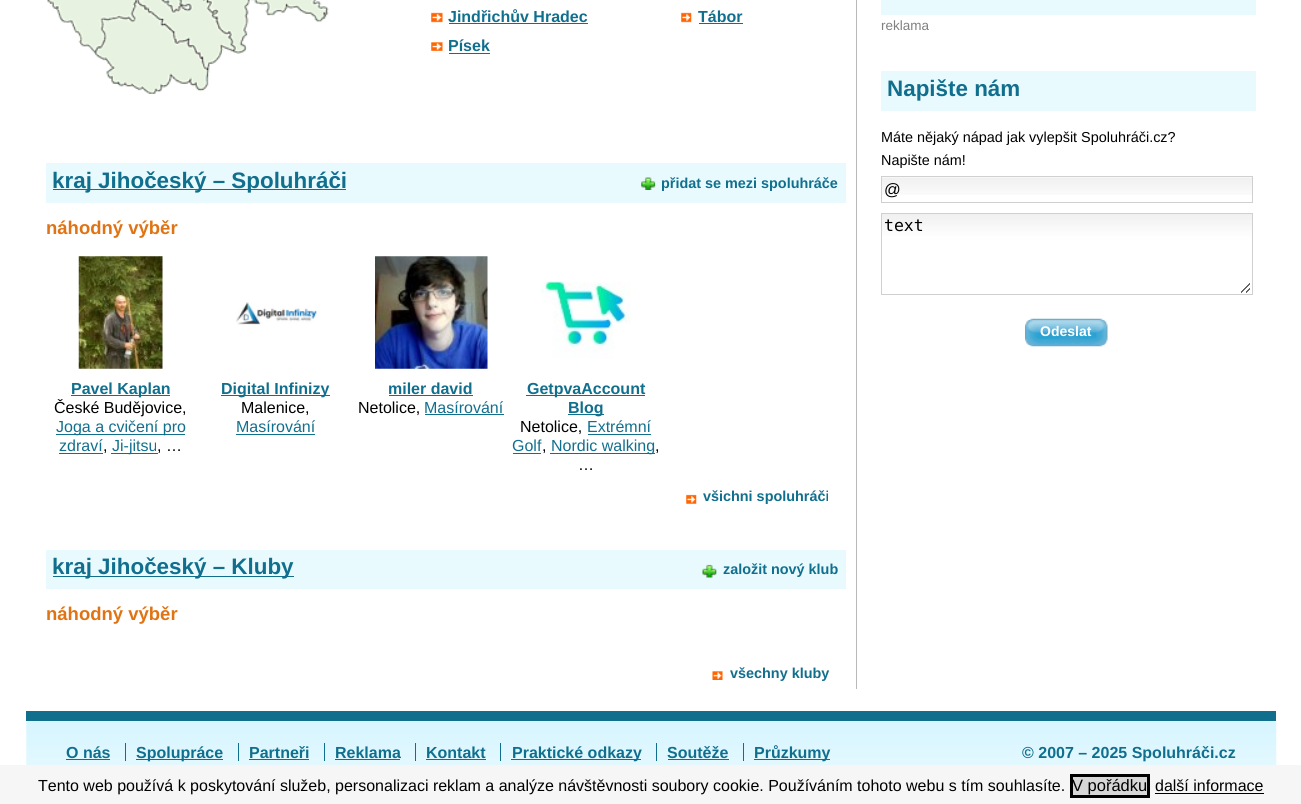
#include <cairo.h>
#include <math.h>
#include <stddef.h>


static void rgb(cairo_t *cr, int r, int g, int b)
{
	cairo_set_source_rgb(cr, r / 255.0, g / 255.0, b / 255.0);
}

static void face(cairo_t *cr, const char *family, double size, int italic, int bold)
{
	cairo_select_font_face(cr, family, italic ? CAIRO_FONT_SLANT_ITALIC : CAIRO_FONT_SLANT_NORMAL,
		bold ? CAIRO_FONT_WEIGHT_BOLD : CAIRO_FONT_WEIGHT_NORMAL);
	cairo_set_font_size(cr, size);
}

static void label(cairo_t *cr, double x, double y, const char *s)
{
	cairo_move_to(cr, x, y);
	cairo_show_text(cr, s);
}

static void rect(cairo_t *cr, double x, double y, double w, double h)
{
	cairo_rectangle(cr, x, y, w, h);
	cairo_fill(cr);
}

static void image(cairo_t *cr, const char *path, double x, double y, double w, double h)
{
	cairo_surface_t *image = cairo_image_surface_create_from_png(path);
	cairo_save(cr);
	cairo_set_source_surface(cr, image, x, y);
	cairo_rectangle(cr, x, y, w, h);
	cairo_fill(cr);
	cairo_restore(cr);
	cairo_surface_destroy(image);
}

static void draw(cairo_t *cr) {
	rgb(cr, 255, 255, 255);
	cairo_paint(cr);
	rgb(cr, 185, 185, 185);
	rect(cr, 856, 0, 1, 689);
	image(cr, "image0.png", 47, 0, 282, 95);
	image(cr, "image1.png", 431, 12, 12, 11);
	face(cr, "Liberation Sans", 16, 0, 1);
	rgb(cr, 17, 111, 142);
	label(cr, 448, 22, "Jindřichův Hradec");
	rect(cr, 449, 23, 139, 1);
	image(cr, "image2.png", 431, 42, 12, 9);
	label(cr, 448, 51, "Písek");
	rect(cr, 449, 53, 41, 1);
	image(cr, "image3.png", 681, 12, 11, 11);
	label(cr, 698, 22, "Tábor");
	rect(cr, 699, 23, 44, 1);
	rgb(cr, 233, 250, 255);
	rect(cr, 46, 163, 800, 40);
	rgb(cr, 17, 111, 142);
	rect(cr, 53, 189, 293, 1);
	face(cr, "Liberation Sans", 22.4, 0, 1);
	label(cr, 52, 188, "kraj Jihočeský – Spoluhráči");
	image(cr, "image4.png", 641, 177, 15, 13);
	face(cr, "Liberation Sans", 14.4, 0, 1);
	label(cr, 661, 188, "přidat se mezi spoluhráče");
	face(cr, "Liberation Sans", 18.5, 0, 1);
	rgb(cr, 224, 115, 19);
	label(cr, 46, 234, "náhodný výběr");
	image(cr, "image5.png", 78, 256, 85, 113);
	rgb(cr, 17, 111, 142);
	rect(cr, 71, 395, 99, 1);
	face(cr, "Liberation Sans", 16, 0, 1);
	label(cr, 71, 394, "Pavel Kaplan");
	face(cr, "Liberation Sans", 16, 0, 0);
	rgb(cr, 0, 0, 0);
	label(cr, 54, 413, "České Budějovice,");
	rgb(cr, 17, 111, 142);
	rect(cr, 56, 434, 129, 1);
	label(cr, 56, 432, "Joga a cvičení pro");
	label(cr, 59, 451, "zdraví");
	rect(cr, 59, 453, 44, 1);
	rgb(cr, 0, 0, 0);
	label(cr, 103, 451, ",");
	rgb(cr, 17, 111, 142);
	rect(cr, 111, 453, 47, 1);
	label(cr, 112, 451, "Ji-jitsu");
	rgb(cr, 0, 0, 0);
	label(cr, 157, 451, ", …");
	image(cr, "image6.png", 236, 302, 81, 23);
	rgb(cr, 17, 111, 142);
	rect(cr, 221, 395, 109, 1);
	face(cr, "Liberation Sans", 16, 0, 1);
	label(cr, 221, 394, "Digital Infinizy");
	face(cr, "Liberation Sans", 16, 0, 0);
	rgb(cr, 0, 0, 0);
	label(cr, 241, 413, "Malenice,");
	rgb(cr, 17, 111, 142);
	label(cr, 236, 432, "Masírování");
	rect(cr, 236, 434, 79, 1);
	image(cr, "image7.png", 375, 256, 113, 113);
	face(cr, "Liberation Sans", 16, 0, 1);
	label(cr, 388, 394, "miler david");
	rect(cr, 389, 395, 84, 1);
	face(cr, "Liberation Sans", 16, 0, 0);
	rgb(cr, 0, 0, 0);
	label(cr, 358, 413, "Netolice,");
	rgb(cr, 17, 111, 142);
	label(cr, 424, 413, "Masírování");
	rect(cr, 425, 414, 79, 1);
	image(cr, "image8.png", 541, 281, 90, 78);
	rect(cr, 526, 395, 119, 1);
	face(cr, "Liberation Sans", 16, 0, 1);
	label(cr, 527, 394, "GetpvaAccount");
	rect(cr, 568, 414, 36, 1);
	label(cr, 568, 413, "Blog");
	face(cr, "Liberation Sans", 16, 0, 0);
	rgb(cr, 0, 0, 0);
	label(cr, 520, 432, "Netolice,");
	rgb(cr, 17, 111, 142);
	label(cr, 587, 432, "Extrémní");
	rect(cr, 588, 434, 63, 1);
	label(cr, 512, 451, "Golf");
	rect(cr, 513, 453, 28, 1);
	rgb(cr, 0, 0, 0);
	label(cr, 542, 451, ",");
	rgb(cr, 17, 111, 142);
	rect(cr, 550, 453, 105, 1);
	label(cr, 551, 451, "Nordic walking");
	rgb(cr, 0, 0, 0);
	label(cr, 655, 451, ",");
	label(cr, 578, 470, "…");
	image(cr, "image9.png", 686, 494, 11, 10);
	face(cr, "Liberation Sans", 14.4, 0, 1);
	rgb(cr, 17, 111, 142);
	label(cr, 703, 501, "všichni spoluhráči");
	rgb(cr, 233, 250, 255);
	rect(cr, 46, 550, 800, 39);
	rgb(cr, 17, 111, 142);
	rect(cr, 53, 576, 241, 1);
	face(cr, "Liberation Sans", 22.4, 0, 1);
	label(cr, 52, 574, "kraj Jihočeský – Kluby");
	image(cr, "image10.png", 702, 564, 15, 14);
	face(cr, "Liberation Sans", 14.4, 0, 1);
	label(cr, 723, 574, "založit nový klub");
	face(cr, "Liberation Sans", 18.5, 0, 1);
	rgb(cr, 224, 115, 19);
	label(cr, 46, 620, "náhodný výběr");
	image(cr, "image11.png", 712, 671, 11, 9);
	face(cr, "Liberation Sans", 14.4, 0, 1);
	rgb(cr, 17, 111, 142);
	label(cr, 730, 678, "všechny kluby");
	rgb(cr, 233, 250, 255);
	rect(cr, 881, 0, 375, 15);
	face(cr, "Liberation Sans", 13.5, 0, 0);
	rgb(cr, 128, 128, 128);
	label(cr, 881, 30, "reklama");
	rgb(cr, 233, 250, 255);
	rect(cr, 881, 71, 375, 40);
	face(cr, "Liberation Sans", 22.4, 0, 1);
	rgb(cr, 17, 111, 142);
	label(cr, 887, 96, "Napište nám");
	face(cr, "Liberation Sans", 14.4, 0, 0);
	rgb(cr, 0, 0, 0);
	label(cr, 881, 142, "Máte nějaký nápad jak vylepšit Spoluhráči.cz?");
	label(cr, 881, 165, "Napište nám!");
	image(cr, "image12.png", 882, 177, 370, 18);
	cairo_rectangle(cr, 881.5, 176.5, 371, 26);
	rgb(cr, 208, 208, 208);
	cairo_set_line_width(cr, 1);
	cairo_stroke(cr);
	face(cr, "Liberation Sans", 16.5, 0, 0);
	rgb(cr, 0, 0, 0);
	label(cr, 884, 195, "@");
	image(cr, "image13.png", 882, 214, 370, 79);
	cairo_rectangle(cr, 881.5, 213.5, 371, 81);
	rgb(cr, 208, 208, 208);
	cairo_stroke(cr);
	face(cr, "DejaVu Sans Mono", 16.5, 0, 0);
	rgb(cr, 0, 0, 0);
	label(cr, 884, 231, "text");
	image(cr, "image14.png", 1025, 318, 83, 29);
	face(cr, "Liberation Sans", 14, 0, 1);
	rgb(cr, 255, 255, 255);
	label(cr, 1040, 336, "Odeslat");
	image(cr, "image15.png", 26, 721, 1251, 44);
	rgb(cr, 17, 111, 142);
	rect(cr, 26, 711, 1250, 10);
	face(cr, "Liberation Sans", 16, 0, 1);
	label(cr, 66, 758, "O nás");
	rect(cr, 66, 759, 44, 1);
	rect(cr, 136, 759, 87, 1);
	label(cr, 136, 758, "Spolupráce");
	rect(cr, 125, 743, 1, 18);
	label(cr, 249, 758, "Partneři");
	rect(cr, 238, 743, 1, 18);
	rect(cr, 249, 759, 60, 1);
	label(cr, 335, 758, "Reklama");
	rect(cr, 324, 743, 1, 18);
	rect(cr, 335, 759, 65, 1);
	label(cr, 426, 758, "Kontakt");
	rect(cr, 415, 743, 1, 18);
	rect(cr, 426, 759, 60, 1);
	rect(cr, 511, 759, 130, 1);
	label(cr, 512, 758, "Praktické odkazy");
	rect(cr, 500, 743, 1, 18);
	label(cr, 667, 758, "Soutěže");
	rect(cr, 656, 743, 1, 18);
	rect(cr, 668, 759, 61, 1);
	rect(cr, 754, 759, 76, 1);
	label(cr, 754, 758, "Průzkumy");
	rect(cr, 743, 743, 1, 18);
	label(cr, 1022, 758, "© 2007 – 2025 Spoluhráči.cz");
	rgb(cr, 246, 246, 246);
	rect(cr, 0, 765, 1301, 39);
	face(cr, "Liberation Sans", 16, 0, 0);
	rgb(cr, 0, 0, 0);
	label(cr, 38, 791, "Tento web používá k poskytování služeb, personalizaci reklam a analýze návštěvnosti soubory cookie. Používáním tohoto webu s tím souhlasíte.");
	rgb(cr, 215, 215, 215);
	cairo_rectangle(cr, 1071.5, 775.5, 77, 21);
	cairo_fill_preserve(cr);
	rgb(cr, 0, 0, 0);
	cairo_set_line_width(cr, 3);
	cairo_stroke(cr);
	face(cr, "Liberation Sans", 16.5, 0, 0);
	label(cr, 1072, 791, "V pořádku");
	face(cr, "Liberation Sans", 16, 0, 0);
	label(cr, 1155, 791, "další informace");
	rect(cr, 1155, 793, 109, 1);
}

int main(void) {
	cairo_surface_t *surface = cairo_image_surface_create(CAIRO_FORMAT_RGB24, 1301, 804);
	cairo_t *cr = cairo_create(surface);
	cairo_font_options_t *options = cairo_font_options_create();
	cairo_font_options_set_hint_metrics(options, CAIRO_HINT_METRICS_OFF);
	cairo_font_options_set_hint_style(options, CAIRO_HINT_STYLE_NONE);
	cairo_set_font_options(cr, options);
	cairo_set_miter_limit(cr, 4);
	draw(cr);
	cairo_surface_write_to_png(surface, "render.png");
	cairo_font_options_destroy(options);
	cairo_destroy(cr);
	cairo_surface_destroy(surface);
	return 0;
}
